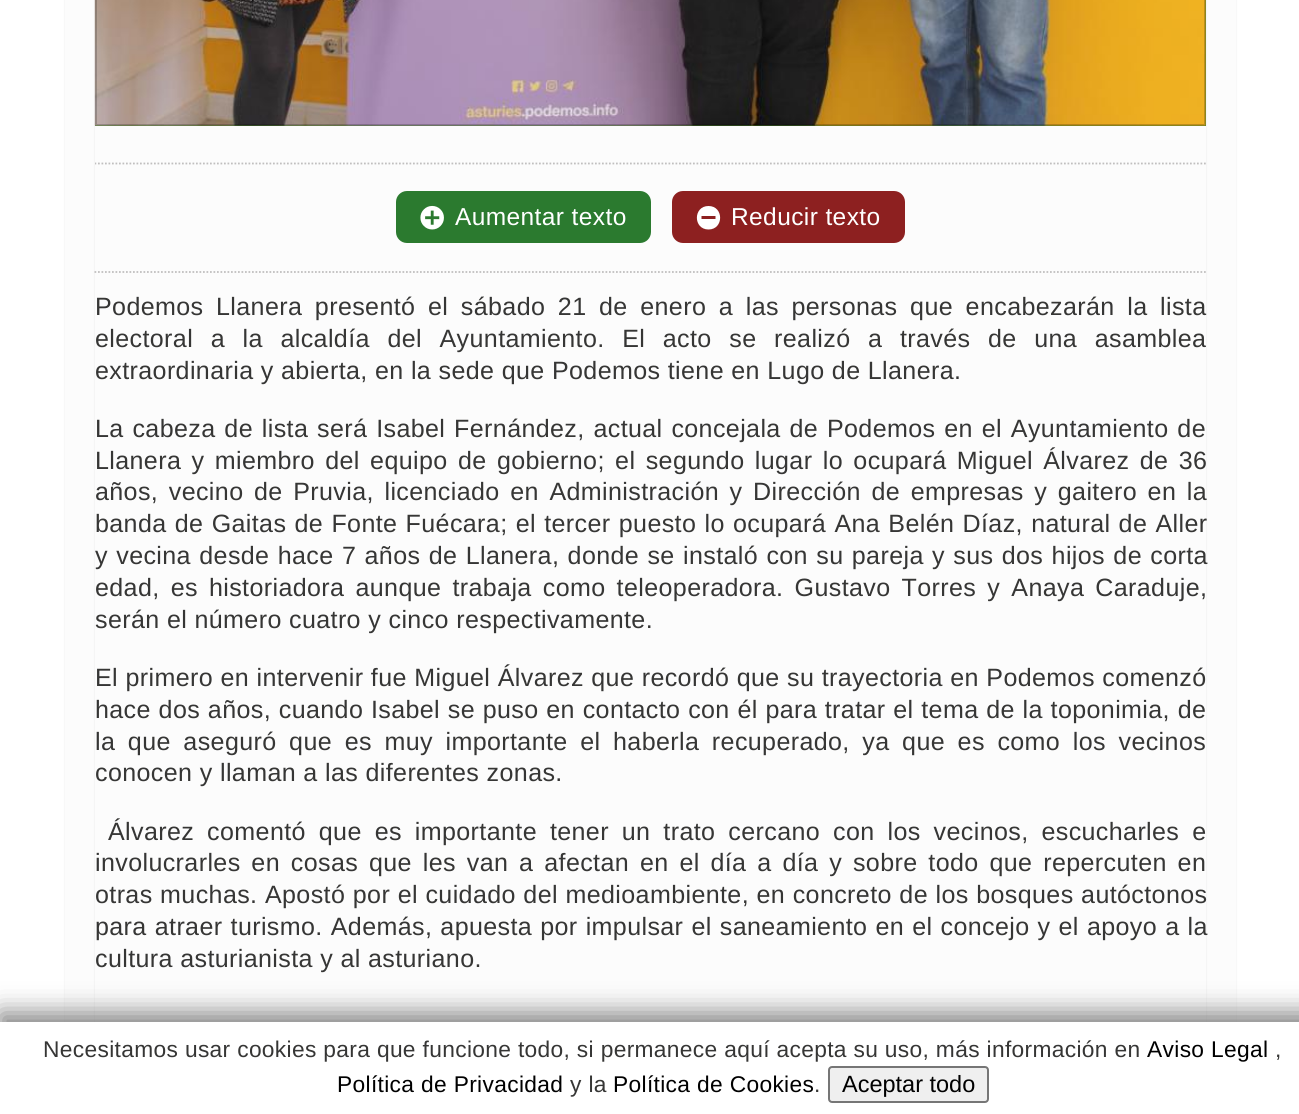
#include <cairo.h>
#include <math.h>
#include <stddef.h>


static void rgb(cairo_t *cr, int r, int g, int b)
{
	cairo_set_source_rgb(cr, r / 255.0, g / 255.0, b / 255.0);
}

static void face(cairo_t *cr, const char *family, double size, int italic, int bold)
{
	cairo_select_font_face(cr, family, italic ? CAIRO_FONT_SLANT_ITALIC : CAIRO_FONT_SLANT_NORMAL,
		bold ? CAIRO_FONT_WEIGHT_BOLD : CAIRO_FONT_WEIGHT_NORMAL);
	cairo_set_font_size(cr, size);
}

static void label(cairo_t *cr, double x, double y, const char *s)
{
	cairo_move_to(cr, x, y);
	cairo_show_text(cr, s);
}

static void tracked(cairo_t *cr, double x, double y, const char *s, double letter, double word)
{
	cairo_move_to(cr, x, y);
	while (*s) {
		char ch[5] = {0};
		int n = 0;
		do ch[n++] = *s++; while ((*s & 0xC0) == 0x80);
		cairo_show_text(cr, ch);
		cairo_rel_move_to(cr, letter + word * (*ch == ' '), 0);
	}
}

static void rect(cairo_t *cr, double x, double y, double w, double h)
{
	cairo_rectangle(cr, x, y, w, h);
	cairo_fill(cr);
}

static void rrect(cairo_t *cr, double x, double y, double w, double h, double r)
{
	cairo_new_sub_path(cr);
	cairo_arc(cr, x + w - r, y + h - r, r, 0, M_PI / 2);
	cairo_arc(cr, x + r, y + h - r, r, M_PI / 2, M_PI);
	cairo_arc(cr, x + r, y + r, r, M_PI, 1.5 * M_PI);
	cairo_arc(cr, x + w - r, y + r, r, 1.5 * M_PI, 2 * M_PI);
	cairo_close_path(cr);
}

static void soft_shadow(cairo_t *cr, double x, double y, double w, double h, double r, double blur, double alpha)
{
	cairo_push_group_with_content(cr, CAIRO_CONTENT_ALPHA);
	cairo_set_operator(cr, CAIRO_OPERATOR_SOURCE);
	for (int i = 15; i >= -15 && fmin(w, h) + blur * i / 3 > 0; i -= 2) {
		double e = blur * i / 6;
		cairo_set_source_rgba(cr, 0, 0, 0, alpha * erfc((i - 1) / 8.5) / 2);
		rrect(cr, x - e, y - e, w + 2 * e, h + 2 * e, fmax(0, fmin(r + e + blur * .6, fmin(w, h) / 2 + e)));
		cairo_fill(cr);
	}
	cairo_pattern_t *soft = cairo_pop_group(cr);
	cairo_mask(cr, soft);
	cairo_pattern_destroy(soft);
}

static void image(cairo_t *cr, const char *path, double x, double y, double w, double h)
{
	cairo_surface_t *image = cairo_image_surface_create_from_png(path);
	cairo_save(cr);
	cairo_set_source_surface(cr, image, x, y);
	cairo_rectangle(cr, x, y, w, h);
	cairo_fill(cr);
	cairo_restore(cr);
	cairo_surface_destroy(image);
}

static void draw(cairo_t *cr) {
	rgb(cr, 255, 255, 255);
	cairo_paint(cr);
	rgb(cr, 0, 0, 0);
	soft_shadow(cr, 65, -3, 1171, 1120, 0, 1, 0.08);
	rgb(cr, 252, 252, 252);
	rect(cr, 65, 0, 1171, 1022);
	rgb(cr, 0, 0, 0);
	soft_shadow(cr, 95, -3, 1111, 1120, 0, 1, 0.08);
	rgb(cr, 252, 252, 252);
	rect(cr, 95, 126, 1111, 896);
	rgb(cr, 84, 155, 42);
	rect(cr, 95, 0, 1111, 126);
	image(cr, "image0.png", 94, 0, 1112, 126);
	cairo_rectangle(cr, 96, -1, 1109, 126);
	cairo_set_source_rgba(cr, 0, 0, 0, 0.2);
	cairo_stroke(cr);
	cairo_save(cr);
	cairo_rectangle(cr, 95, 0, 1111, 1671);
	cairo_clip(cr);
	cairo_new_path(cr);
	cairo_move_to(cr, 94.5, 163.5);
	cairo_line_to(cr, 1206, 163.5);
	rgb(cr, 192, 191, 191);
	cairo_set_line_width(cr, 1.8);
	cairo_set_dash(cr, (double[]){1.75, 1.75}, 2, 0);
	cairo_stroke(cr);
	cairo_restore(cr);
	rgb(cr, 43, 122, 47);
	rrect(cr, 396, 191, 255, 52, 11);
	cairo_fill(cr);
	image(cr, "image1.png", 420, 205, 24, 25);
	face(cr, "Liberation Sans", 24.5, 0, 0);
	rgb(cr, 255, 255, 255);
	tracked(cr, 455, 225, "Aumentar texto", 0.4, 0);
	rgb(cr, 141, 32, 32);
	rrect(cr, 672, 191, 233, 52, 11);
	cairo_fill(cr);
	rgb(cr, 255, 255, 255);
	cairo_new_path(cr);
	cairo_move_to(cr, 708.5, 206);
	cairo_curve_to(cr, 724, 206, 724, 229.5, 708.5, 229.5);
	cairo_curve_to(cr, 693, 229.5, 693, 206, 708.5, 206);
	cairo_close_path(cr);
	cairo_move_to(cr, 715.5, 216);
	cairo_line_to(cr, 701.5, 216);
	cairo_line_to(cr, 701.5, 219);
	cairo_line_to(cr, 715.5, 219);
	cairo_close_path(cr);
	cairo_fill(cr);
	tracked(cr, 731, 225, "Reducir texto", 0.4, 0);
	cairo_new_path(cr);
	cairo_move_to(cr, 94.5, 272);
	cairo_line_to(cr, 1206, 272);
	rgb(cr, 192, 191, 191);
	cairo_set_line_width(cr, 1.8);
	cairo_set_dash(cr, (double[]){1.75, 1.75}, 2, 0);
	cairo_stroke(cr);
	face(cr, "Liberation Sans", 25.05, 0, 0);
	rgb(cr, 54, 54, 53);
	tracked(cr, 95, 315, "Podemos Llanera presentó el sábado 21 de enero a las personas que encabezarán la lista", 0.38, 5.25);
	tracked(cr, 95, 347, "electoral a la alcaldía del Ayuntamiento. El acto se realizó a través de una asamblea", 0.38, 10.25);
	tracked(cr, 95, 379, "extraordinaria y abierta, en la sede que Podemos tiene en Lugo de Llanera.", 0.38, 0);
	tracked(cr, 95, 437, "La cabeza de lista será Isabel Fernández, actual concejala de Podemos en el Ayuntamiento de", 0.38, 1.5);
	tracked(cr, 95, 469, "Llanera y miembro del equipo de gobierno; el segundo lugar lo ocupará Miguel Álvarez de 36", 0.38, 3);
	tracked(cr, 95, 500, "años, vecino de Pruvia, licenciado en Administración y Dirección de empresas y gaitero en la", 0.38, 3.25);
	tracked(cr, 95, 532, "banda de Gaitas de Fonte Fuécara; el tercer puesto lo ocupará Ana Belén Díaz, natural de Aller", 0.38, 0.9);
	tracked(cr, 95, 564, "y vecina desde hace 7 años de Llanera, donde se instaló con su pareja y sus dos hijos de corta", 0.38, 1);
	tracked(cr, 95, 596, "edad, es historiadora aunque trabaja como teleoperadora. Gustavo Torres y Anaya Caraduje,", 0.38, 3.75);
	tracked(cr, 95, 628, "serán el número cuatro y cinco respectivamente.", 0.38, 0);
	tracked(cr, 95, 686, "El primero en intervenir fue Miguel Álvarez que recordó que su trayectoria en Podemos comenzó", 0.38, 0.1);
	tracked(cr, 95, 718, "hace dos años, cuando Isabel se puso en contacto con él para tratar el tema de la toponimia, de", 0.38, 0.4);
	tracked(cr, 95, 750, "la que aseguró que es muy importante el haberla recuperado, ya que es como los vecinos", 0.38, 5.25);
	tracked(cr, 95, 781, "conocen y llaman a las diferentes zonas.", 0.38, 0);
	tracked(cr, 108, 840, "Álvarez comentó que es importante tener un trato cercano con los vecinos, escucharles e", 0.38, 5.6);
	tracked(cr, 95, 871, "involucrarles en cosas que les van a afectan en el día a día y sobre todo que repercuten en", 0.38, 3.5);
	tracked(cr, 95, 903, "otras muchas. Apostó por el cuidado del medioambiente, en concreto de los bosques autóctonos", 0.38, 0.2);
	tracked(cr, 95, 935, "para atraer turismo. Además, apuesta por impulsar el saneamiento en el concejo y el apoyo a la", 0.38, 0.75);
	tracked(cr, 95, 967, "cultura asturianista y al asturiano.", 0.38, 0);
	rgb(cr, 128, 128, 128);
	soft_shadow(cr, 0, 1013, 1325, 93, 0, 13, 1);
	rgb(cr, 255, 255, 255);
	rect(cr, 0, 1022, 1299, 92);
	face(cr, "Liberation Sans", 22.75, 0, 0);
	rgb(cr, 54, 54, 53);
	tracked(cr, 43, 1057, "Necesitamos usar cookies para que funcione todo, si permanece aquí acepta su uso, más información en", 0.34, 0);
	rgb(cr, 0, 0, 0);
	tracked(cr, 1147, 1057, "Aviso Legal", 0.34, 0);
	rgb(cr, 54, 54, 53);
	tracked(cr, 1275, 1057, ",", 0.34, 0);
	rgb(cr, 0, 0, 0);
	tracked(cr, 337, 1092, "Política de Privacidad", 0.34, 0);
	rgb(cr, 54, 54, 53);
	tracked(cr, 570, 1092, "y la", 0.34, 0);
	rgb(cr, 0, 0, 0);
	tracked(cr, 613, 1092, "Política de Cookies", 0.34, 0);
	rgb(cr, 54, 54, 53);
	tracked(cr, 814, 1092, ".", 0.34, 0);
	rgb(cr, 239, 239, 239);
	rrect(cr, 829, 1067, 159, 35, 3);
	cairo_fill_preserve(cr);
	rgb(cr, 118, 118, 118);
	cairo_set_line_width(cr, 2);
	cairo_set_dash(cr, NULL, 0, 0);
	cairo_stroke(cr);
	face(cr, "Liberation Sans", 23.5, 0, 0);
	rgb(cr, 0, 0, 0);
	label(cr, 842, 1092, "Aceptar todo");
}

int main(void) {
	cairo_surface_t *surface = cairo_image_surface_create(CAIRO_FORMAT_RGB24, 1299, 1114);
	cairo_t *cr = cairo_create(surface);
	cairo_font_options_t *options = cairo_font_options_create();
	cairo_font_options_set_hint_metrics(options, CAIRO_HINT_METRICS_OFF);
	cairo_font_options_set_hint_style(options, CAIRO_HINT_STYLE_NONE);
	cairo_set_font_options(cr, options);
	cairo_set_miter_limit(cr, 4);
	draw(cr);
	cairo_surface_write_to_png(surface, "render.png");
	cairo_font_options_destroy(options);
	cairo_destroy(cr);
	cairo_surface_destroy(surface);
	return 0;
}
